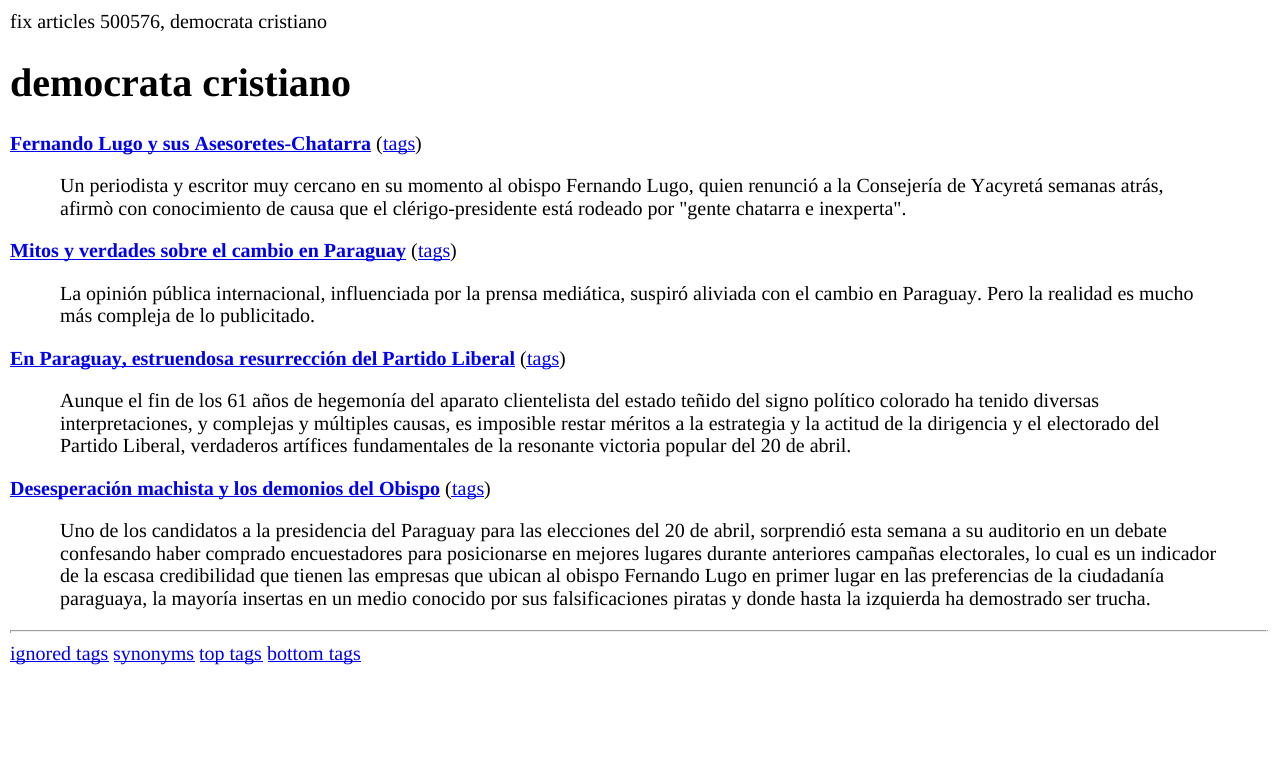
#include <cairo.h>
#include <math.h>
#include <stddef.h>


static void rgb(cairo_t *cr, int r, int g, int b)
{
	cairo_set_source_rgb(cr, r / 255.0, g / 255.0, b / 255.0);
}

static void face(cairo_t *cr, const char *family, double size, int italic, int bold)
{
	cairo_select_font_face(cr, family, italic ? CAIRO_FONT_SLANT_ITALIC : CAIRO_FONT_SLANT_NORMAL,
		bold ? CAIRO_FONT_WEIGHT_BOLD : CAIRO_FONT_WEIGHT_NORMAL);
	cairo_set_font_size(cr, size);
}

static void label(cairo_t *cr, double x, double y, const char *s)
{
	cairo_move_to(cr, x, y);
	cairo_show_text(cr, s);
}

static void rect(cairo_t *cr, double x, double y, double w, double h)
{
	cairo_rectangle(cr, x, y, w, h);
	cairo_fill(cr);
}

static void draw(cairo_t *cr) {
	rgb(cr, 255, 255, 255);
	cairo_paint(cr);
	face(cr, "Liberation Serif", 20, 0, 0);
	rgb(cr, 0, 0, 0);
	label(cr, 10, 28, "fix articles 500576, democrata cristiano");
	face(cr, "Liberation Serif", 40, 0, 1);
	label(cr, 10, 96, "democrata cristiano");
	rgb(cr, 0, 0, 238);
	rect(cr, 10, 151, 361, 1);
	face(cr, "Liberation Serif", 20, 0, 1);
	label(cr, 10, 150, "Fernando Lugo y sus Asesoretes-Chatarra");
	face(cr, "Liberation Serif", 20, 0, 0);
	rgb(cr, 0, 0, 0);
	label(cr, 376, 150, "(");
	rgb(cr, 0, 0, 238);
	rect(cr, 383, 151, 32, 1);
	label(cr, 383, 150, "tags");
	rgb(cr, 0, 0, 0);
	label(cr, 415, 150, ")");
	label(cr, 60, 192, "Un periodista y escritor muy cercano en su momento al obispo Fernando Lugo, quien renunció a la Consejería de Yacyretá semanas atrás,");
	label(cr, 60, 215, "afirmò con conocimiento de causa que el clérigo-presidente está rodeado por \"gente chatarra e inexperta\".");
	rgb(cr, 0, 0, 238);
	rect(cr, 10, 259, 396, 1);
	face(cr, "Liberation Serif", 20, 0, 1);
	label(cr, 10, 257, "Mitos y verdades sobre el cambio en Paraguay");
	face(cr, "Liberation Serif", 20, 0, 0);
	rgb(cr, 0, 0, 0);
	label(cr, 411, 257, "(");
	rgb(cr, 0, 0, 238);
	rect(cr, 418, 259, 32, 1);
	label(cr, 418, 257, "tags");
	rgb(cr, 0, 0, 0);
	label(cr, 450, 257, ")");
	label(cr, 60, 300, "La opinión pública internacional, influenciada por la prensa mediática, suspiró aliviada con el cambio en Paraguay. Pero la realidad es mucho");
	label(cr, 60, 322, "más compleja de lo publicitado.");
	rgb(cr, 0, 0, 238);
	rect(cr, 10, 366, 505, 1);
	face(cr, "Liberation Serif", 20, 0, 1);
	label(cr, 10, 365, "En Paraguay, estruendosa resurrección del Partido Liberal");
	face(cr, "Liberation Serif", 20, 0, 0);
	rgb(cr, 0, 0, 0);
	label(cr, 520, 365, "(");
	rgb(cr, 0, 0, 238);
	rect(cr, 526, 366, 33, 1);
	label(cr, 527, 365, "tags");
	rgb(cr, 0, 0, 0);
	label(cr, 559, 365, ")");
	label(cr, 60, 407, "Aunque el fin de los 61 años de hegemonía del aparato clientelista del estado teñido del signo político colorado ha tenido diversas");
	label(cr, 60, 430, "interpretaciones, y complejas y múltiples causas, es imposible restar méritos a la estrategia y la actitud de la dirigencia y el electorado del");
	label(cr, 60, 452, "Partido Liberal, verdaderos artífices fundamentales de la resonante victoria popular del 20 de abril.");
	rgb(cr, 0, 0, 238);
	rect(cr, 10, 496, 430, 1);
	face(cr, "Liberation Serif", 20, 0, 1);
	label(cr, 10, 495, "Desesperación machista y los demonios del Obispo");
	face(cr, "Liberation Serif", 20, 0, 0);
	rgb(cr, 0, 0, 0);
	label(cr, 445, 495, "(");
	rgb(cr, 0, 0, 238);
	rect(cr, 451, 496, 33, 1);
	label(cr, 452, 495, "tags");
	rgb(cr, 0, 0, 0);
	label(cr, 484, 495, ")");
	label(cr, 60, 537, "Uno de los candidatos a la presidencia del Paraguay para las elecciones del 20 de abril, sorprendió esta semana a su auditorio en un debate");
	label(cr, 60, 560, "confesando haber comprado encuestadores para posicionarse en mejores lugares durante anteriores campañas electorales, lo cual es un indicador");
	label(cr, 60, 582, "de la escasa credibilidad que tienen las empresas que ubican al obispo Fernando Lugo en primer lugar en las preferencias de la ciudadanía");
	label(cr, 60, 605, "paraguaya, la mayoría insertas en un medio conocido por sus falsificaciones piratas y donde hasta la izquierda ha demostrado ser trucha.");
	rgb(cr, 159, 159, 159);
	rect(cr, 10, 630, 1258, 1);
	rgb(cr, 238, 238, 238);
	rect(cr, 1266, 630, 1, 3);
	rect(cr, 10, 631, 1258, 1);
	rgb(cr, 159, 159, 159);
	rect(cr, 10, 630, 1, 3);
	rgb(cr, 0, 0, 238);
	rect(cr, 10, 661, 99, 1);
	label(cr, 10, 660, "ignored tags");
	rect(cr, 114, 661, 81, 1);
	label(cr, 113, 660, "synonyms");
	rect(cr, 200, 661, 63, 1);
	label(cr, 199, 660, "top tags");
	rect(cr, 268, 661, 93, 1);
	label(cr, 267, 660, "bottom tags");
}

int main(void) {
	cairo_surface_t *surface = cairo_image_surface_create(CAIRO_FORMAT_RGB24, 1277, 775);
	cairo_t *cr = cairo_create(surface);
	cairo_font_options_t *options = cairo_font_options_create();
	cairo_font_options_set_hint_metrics(options, CAIRO_HINT_METRICS_OFF);
	cairo_font_options_set_hint_style(options, CAIRO_HINT_STYLE_NONE);
	cairo_set_font_options(cr, options);
	cairo_set_miter_limit(cr, 4);
	draw(cr);
	cairo_surface_write_to_png(surface, "render.png");
	cairo_font_options_destroy(options);
	cairo_destroy(cr);
	cairo_surface_destroy(surface);
	return 0;
}
